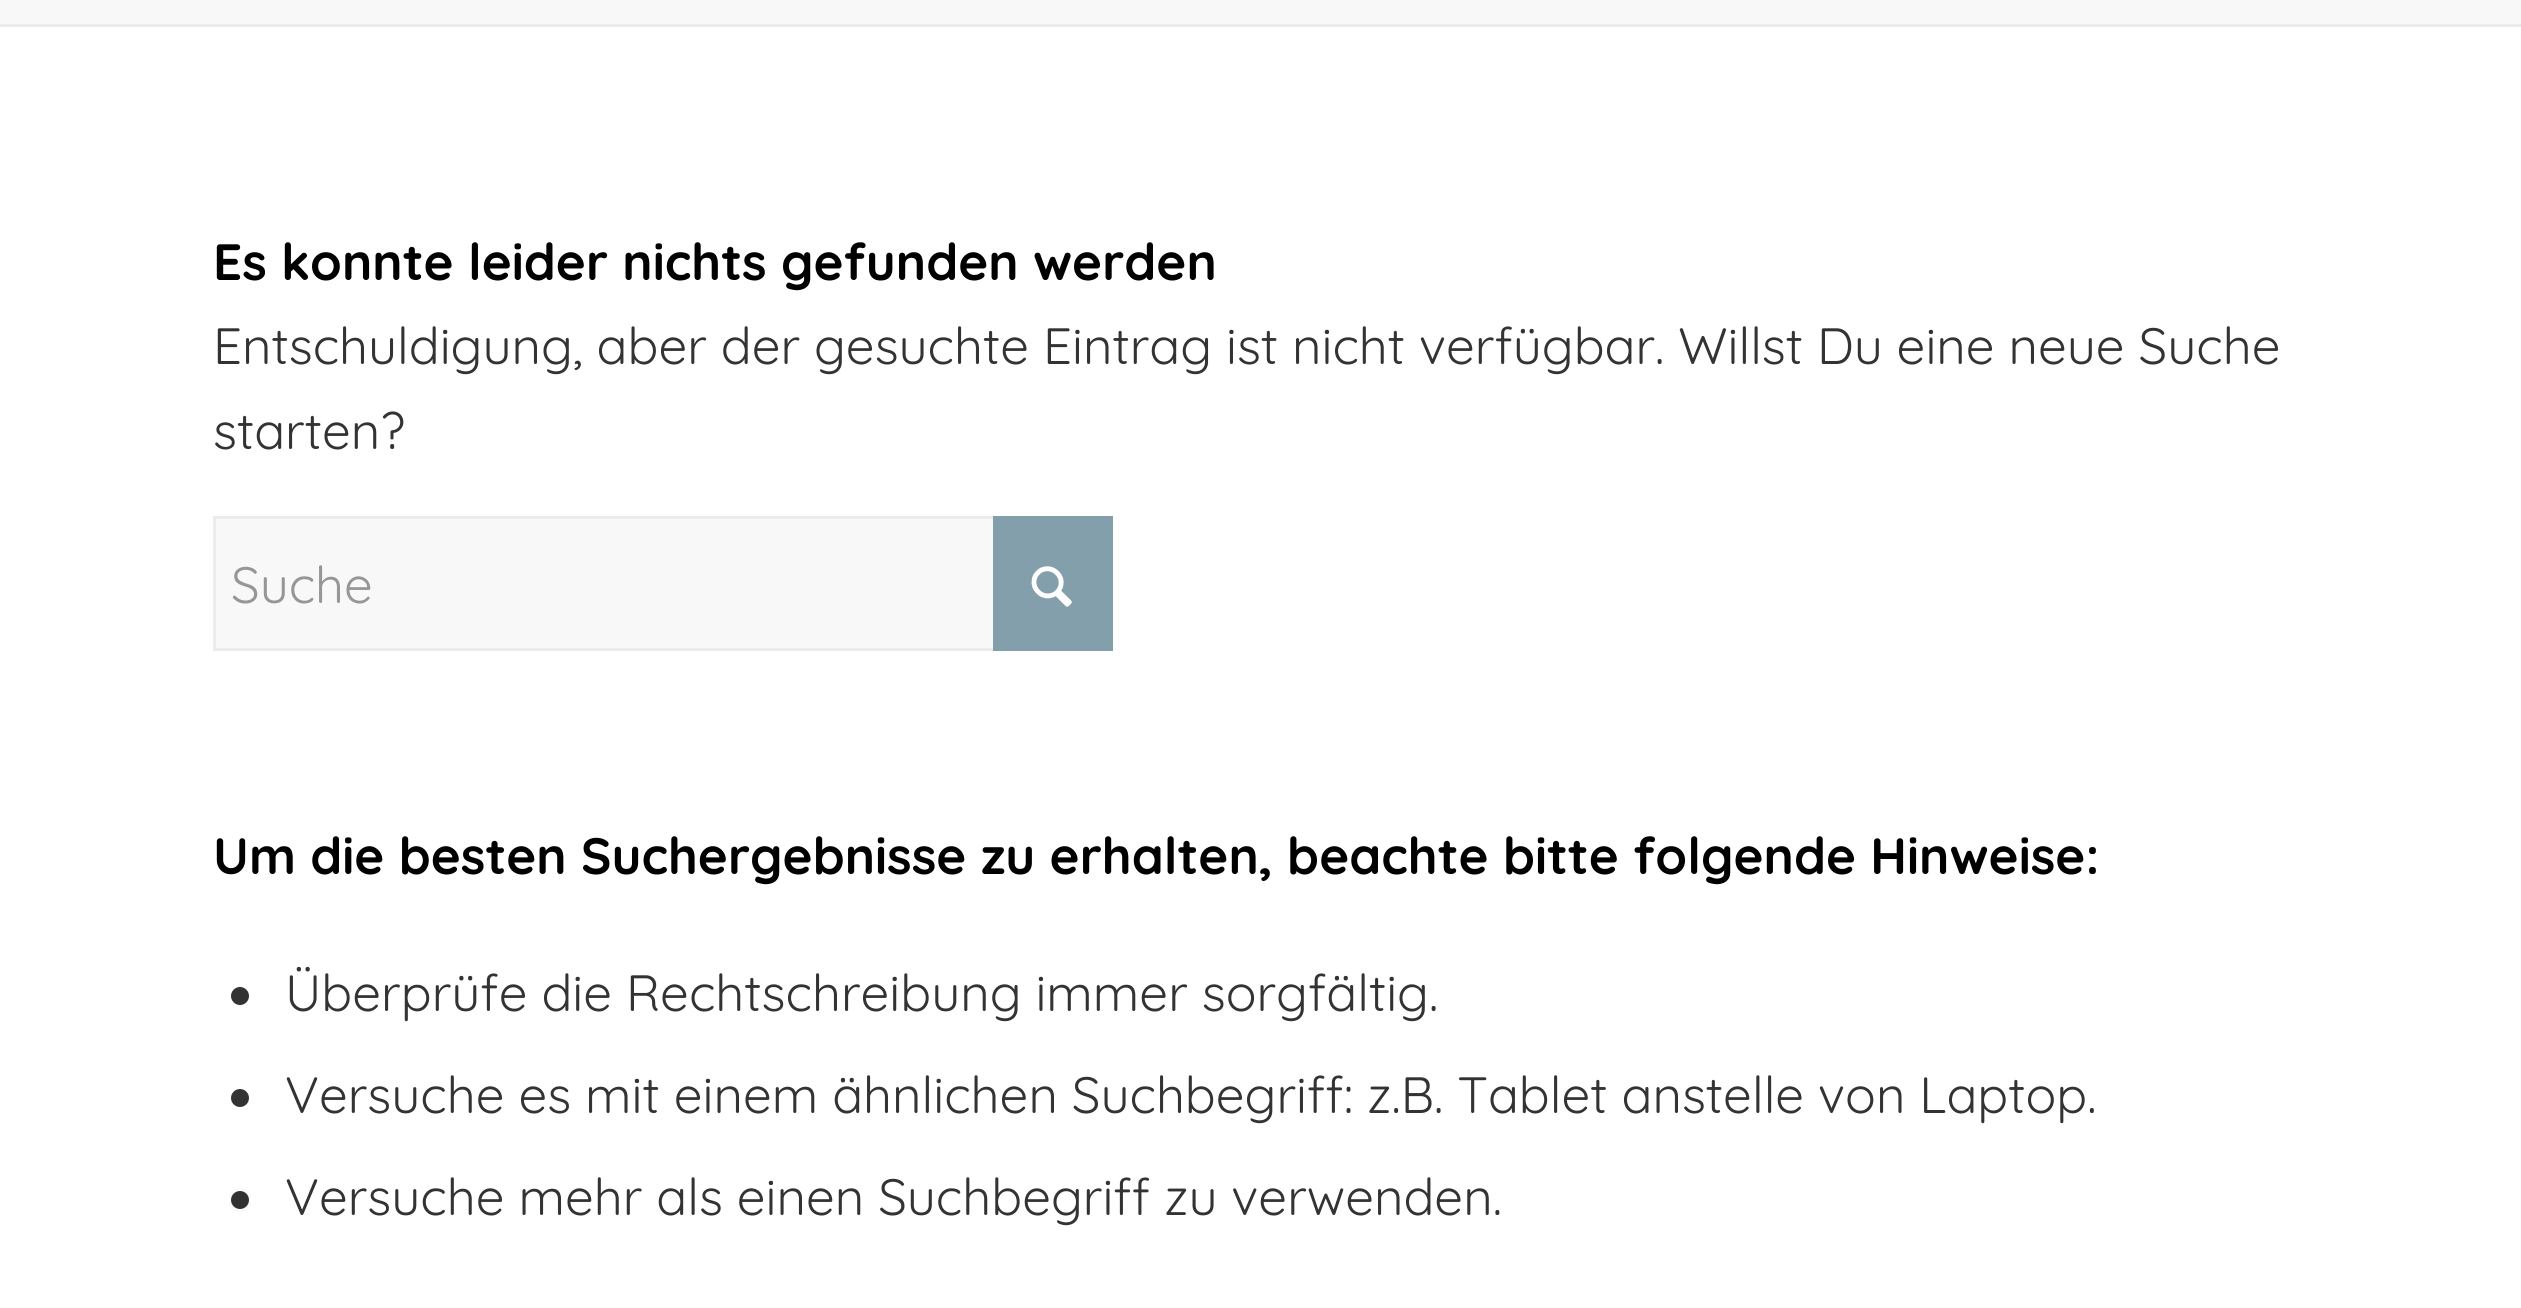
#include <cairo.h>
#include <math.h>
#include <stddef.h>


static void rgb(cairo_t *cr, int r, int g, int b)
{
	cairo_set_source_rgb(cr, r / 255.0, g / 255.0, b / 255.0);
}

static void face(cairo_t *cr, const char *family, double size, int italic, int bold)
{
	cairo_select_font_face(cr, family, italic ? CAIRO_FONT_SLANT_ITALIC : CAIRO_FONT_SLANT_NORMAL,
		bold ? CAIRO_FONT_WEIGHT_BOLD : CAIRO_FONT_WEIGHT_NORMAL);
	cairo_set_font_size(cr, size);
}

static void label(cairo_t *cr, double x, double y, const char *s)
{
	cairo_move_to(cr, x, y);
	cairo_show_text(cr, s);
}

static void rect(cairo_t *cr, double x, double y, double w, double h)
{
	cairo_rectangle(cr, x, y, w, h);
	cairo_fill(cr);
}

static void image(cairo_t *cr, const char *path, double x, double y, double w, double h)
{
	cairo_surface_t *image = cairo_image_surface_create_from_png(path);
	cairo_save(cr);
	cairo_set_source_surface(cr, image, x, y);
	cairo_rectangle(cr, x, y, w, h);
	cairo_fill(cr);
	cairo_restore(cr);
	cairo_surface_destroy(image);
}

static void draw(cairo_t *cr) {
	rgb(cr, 255, 255, 255);
	cairo_paint(cr);
	rgb(cr, 248, 248, 248);
	rect(cr, 0, 0, 2521, 24);
	rgb(cr, 235, 235, 235);
	rect(cr, 0, 24, 2521, 3);
	face(cr, "Quicksand", 51, 0, 1);
	rgb(cr, 0, 0, 0);
	label(cr, 213, 280, "Es konnte leider nichts gefunden werden");
	face(cr, "Quicksand", 51, 0, 0);
	rgb(cr, 51, 51, 51);
	label(cr, 213, 364, "Entschuldigung, aber der gesuchte Eintrag ist nicht verfügbar. Willst Du eine neue Suche");
	label(cr, 213, 449, "starten?");
	rgb(cr, 248, 248, 248);
	rect(cr, 216, 519, 777, 129);
	cairo_rectangle(cr, 214.5, 517.5, 897, 132);
	rgb(cr, 235, 235, 235);
	cairo_set_line_width(cr, 3);
	cairo_stroke(cr);
	rgb(cr, 150, 150, 150);
	label(cr, 231, 603, "Suche");
	rgb(cr, 131, 159, 171);
	rect(cr, 993, 516, 120, 135);
	image(cr, "image0.png", 1031, 566, 41, 41);
	face(cr, "Quicksand", 51, 0, 1);
	rgb(cr, 0, 0, 0);
	label(cr, 213, 874, "Um die besten Suchergebnisse zu erhalten, beachte bitte folgende Hinweise:");
	rgb(cr, 51, 51, 51);
	cairo_new_path(cr);
	cairo_arc(cr, 240, 996, 9, 0, 2 * M_PI);
	cairo_fill(cr);
	face(cr, "Quicksand", 51, 0, 0);
	label(cr, 285, 1011, "Überprüfe die Rechtschreibung immer sorgfältig.");
	cairo_new_path(cr);
	cairo_arc(cr, 240, 1098, 9, 0, 2 * M_PI);
	cairo_fill(cr);
	label(cr, 285, 1113, "Versuche es mit einem ähnlichen Suchbegriff: z.B. Tablet anstelle von Laptop.");
	cairo_new_path(cr);
	cairo_arc(cr, 240, 1200, 9, 0, 2 * M_PI);
	cairo_fill(cr);
	label(cr, 285, 1215, "Versuche mehr als einen Suchbegriff zu verwenden.");
}

int main(void) {
	cairo_surface_t *surface = cairo_image_surface_create(CAIRO_FORMAT_RGB24, 2521, 1308);
	cairo_t *cr = cairo_create(surface);
	cairo_font_options_t *options = cairo_font_options_create();
	cairo_font_options_set_hint_metrics(options, CAIRO_HINT_METRICS_OFF);
	cairo_font_options_set_hint_style(options, CAIRO_HINT_STYLE_NONE);
	cairo_set_font_options(cr, options);
	cairo_set_miter_limit(cr, 4);
	draw(cr);
	cairo_surface_write_to_png(surface, "render.png");
	cairo_font_options_destroy(options);
	cairo_destroy(cr);
	cairo_surface_destroy(surface);
	return 0;
}
